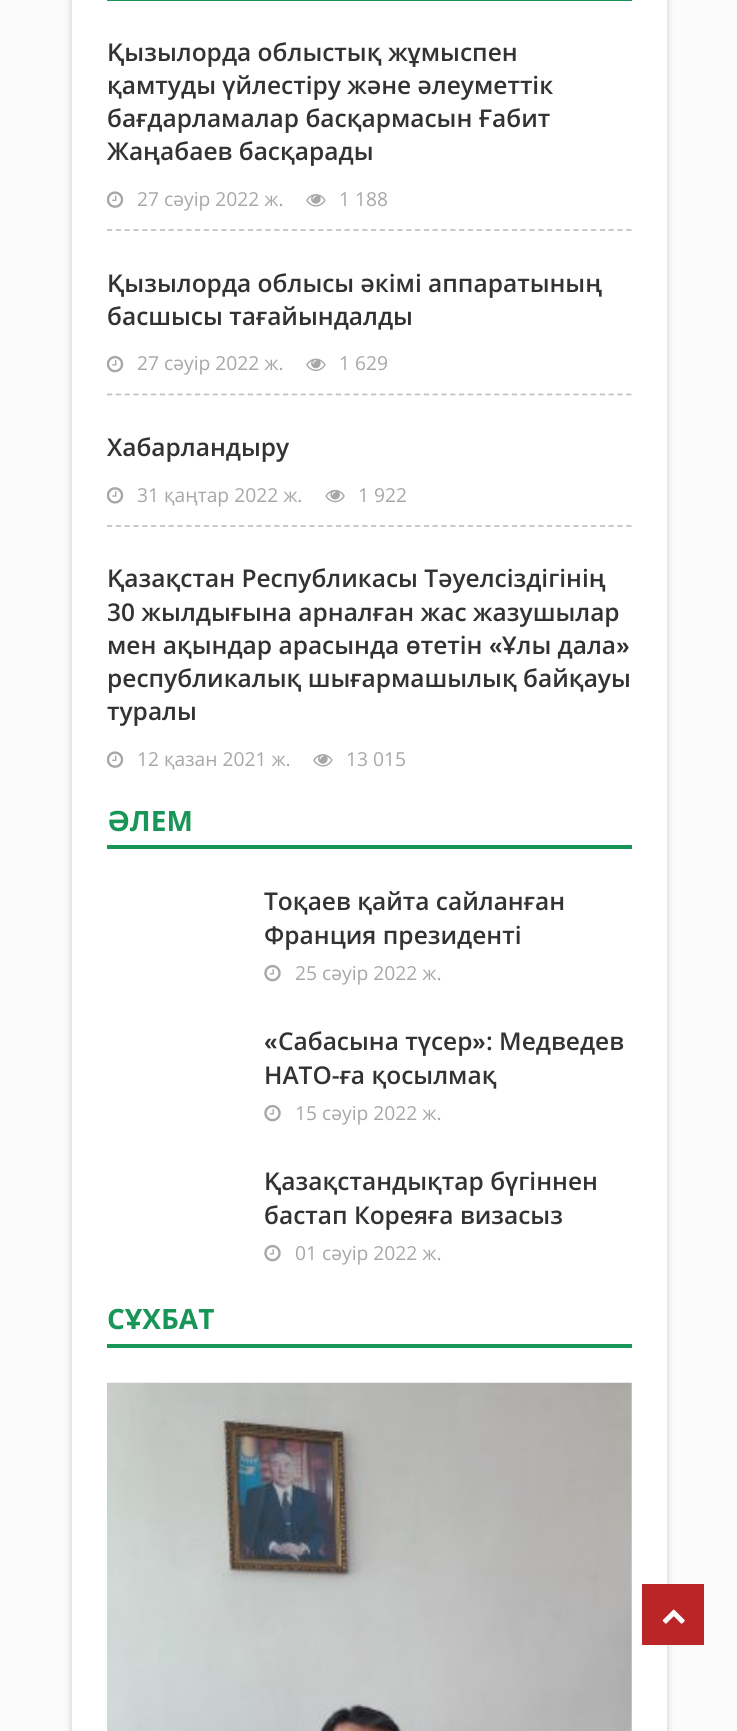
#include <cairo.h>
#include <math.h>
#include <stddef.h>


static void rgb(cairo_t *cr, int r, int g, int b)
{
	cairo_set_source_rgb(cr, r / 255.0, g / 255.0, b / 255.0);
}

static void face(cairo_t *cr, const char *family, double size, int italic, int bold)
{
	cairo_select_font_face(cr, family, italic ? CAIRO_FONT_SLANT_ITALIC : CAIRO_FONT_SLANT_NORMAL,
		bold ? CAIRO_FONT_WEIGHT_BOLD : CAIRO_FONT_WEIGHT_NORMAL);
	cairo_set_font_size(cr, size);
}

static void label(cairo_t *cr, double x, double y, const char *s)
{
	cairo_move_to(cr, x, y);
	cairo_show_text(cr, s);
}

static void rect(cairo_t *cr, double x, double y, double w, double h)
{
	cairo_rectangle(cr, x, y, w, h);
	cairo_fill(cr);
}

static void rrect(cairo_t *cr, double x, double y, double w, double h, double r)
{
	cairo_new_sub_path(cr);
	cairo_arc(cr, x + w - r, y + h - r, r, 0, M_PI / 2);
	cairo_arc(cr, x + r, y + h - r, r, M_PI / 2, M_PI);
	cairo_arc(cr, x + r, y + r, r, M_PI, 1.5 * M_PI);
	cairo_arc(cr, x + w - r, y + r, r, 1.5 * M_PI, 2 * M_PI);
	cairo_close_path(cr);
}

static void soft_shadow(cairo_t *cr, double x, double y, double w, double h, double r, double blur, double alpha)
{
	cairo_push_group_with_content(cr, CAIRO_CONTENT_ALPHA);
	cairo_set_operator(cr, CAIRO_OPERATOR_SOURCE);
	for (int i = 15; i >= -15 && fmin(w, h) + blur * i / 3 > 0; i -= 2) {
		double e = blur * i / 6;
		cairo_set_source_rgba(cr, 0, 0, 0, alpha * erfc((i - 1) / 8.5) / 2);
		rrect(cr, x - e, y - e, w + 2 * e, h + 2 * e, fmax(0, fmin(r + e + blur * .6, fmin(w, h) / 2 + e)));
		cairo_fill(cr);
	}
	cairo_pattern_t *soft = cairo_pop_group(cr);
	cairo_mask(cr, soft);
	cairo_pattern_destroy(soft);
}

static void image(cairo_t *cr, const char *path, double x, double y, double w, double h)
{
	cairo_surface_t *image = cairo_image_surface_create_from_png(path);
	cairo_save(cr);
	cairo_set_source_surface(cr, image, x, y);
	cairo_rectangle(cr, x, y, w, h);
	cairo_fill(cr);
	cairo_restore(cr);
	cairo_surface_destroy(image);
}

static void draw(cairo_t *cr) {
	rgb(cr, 251, 251, 251);
	cairo_paint(cr);
	rgb(cr, 0, 0, 0);
	soft_shadow(cr, 72, -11, 595, 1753, 0, 3.5, 0.2);
	rgb(cr, 255, 255, 255);
	rect(cr, 72, 0, 595, 1731);
	rgb(cr, 24, 150, 88);
	rect(cr, 107, 0, 525, 1);
	cairo_new_path(cr);
	cairo_move_to(cr, 107, 230);
	cairo_line_to(cr, 632, 230);
	rgb(cr, 196, 196, 196);
	cairo_set_line_width(cr, 1.8);
	cairo_set_dash(cr, (double[]){5.25, 3.55}, 2, 0);
	cairo_stroke(cr);
	face(cr, "Open Sans SemiBold", 24.5, 0, 0);
	rgb(cr, 51, 51, 51);
	label(cr, 107, 61, "Қызылорда облыстық жұмыспен");
	label(cr, 107, 94, "қамтуды үйлестіру және әлеуметтік");
	label(cr, 107, 127, "бағдарламалар басқармасын Ғабит");
	label(cr, 107, 160, "Жаңабаев басқарады");
	image(cr, "image0.png", 107, 191, 17, 17);
	face(cr, "Open Sans", 19.25, 0, 0);
	rgb(cr, 167, 167, 167);
	label(cr, 137, 206, "27 сәуір 2022 ж.");
	image(cr, "image1.png", 306, 194, 20, 13);
	label(cr, 339, 206, "1 188");
	cairo_new_path(cr);
	cairo_move_to(cr, 107, 394.5);
	cairo_line_to(cr, 632, 394.5);
	rgb(cr, 196, 196, 196);
	cairo_stroke(cr);
	face(cr, "Open Sans SemiBold", 24.5, 0, 0);
	rgb(cr, 51, 51, 51);
	label(cr, 107, 292, "Қызылорда облысы әкімі аппаратының");
	label(cr, 107, 325, "басшысы тағайындалды");
	image(cr, "image2.png", 107, 355, 17, 18);
	face(cr, "Open Sans", 19.25, 0, 0);
	rgb(cr, 167, 167, 167);
	label(cr, 137, 370, "27 сәуір 2022 ж.");
	image(cr, "image3.png", 306, 358, 20, 13);
	label(cr, 339, 370, "1 629");
	cairo_new_path(cr);
	cairo_move_to(cr, 107, 526);
	cairo_line_to(cr, 632, 526);
	rgb(cr, 196, 196, 196);
	cairo_stroke(cr);
	face(cr, "Open Sans SemiBold", 24.5, 0, 0);
	rgb(cr, 51, 51, 51);
	label(cr, 107, 456, "Хабарландыру");
	image(cr, "image4.png", 107, 487, 17, 17);
	face(cr, "Open Sans", 19.25, 0, 0);
	rgb(cr, 167, 167, 167);
	label(cr, 137, 502, "31 қаңтар 2022 ж.");
	image(cr, "image5.png", 325, 489, 20, 14);
	label(cr, 358, 502, "1 922");
	face(cr, "Open Sans SemiBold", 24.5, 0, 0);
	rgb(cr, 51, 51, 51);
	label(cr, 107, 587, "Қазақстан Республикасы Тәуелсіздігінің");
	label(cr, 107, 621, "30 жылдығына арналған жас жазушылар");
	label(cr, 107, 654, "мен ақындар арасында өтетін");
	face(cr, "Liberation Sans", 24.5, 0, 1);
	label(cr, 489, 654, "«");
	face(cr, "Open Sans SemiBold", 24.5, 0, 0);
	label(cr, 502, 654, "Ұлы дала");
	face(cr, "Liberation Sans", 24.5, 0, 1);
	label(cr, 616, 654, "»");
	face(cr, "Open Sans SemiBold", 24.5, 0, 0);
	label(cr, 107, 687, "республикалық шығармашылық байқауы");
	label(cr, 107, 720, "туралы");
	image(cr, "image0.png", 107, 751, 17, 17);
	face(cr, "Open Sans", 19.25, 0, 0);
	rgb(cr, 167, 167, 167);
	label(cr, 137, 766, "12 қазан 2021 ж.");
	image(cr, "image1.png", 313, 754, 20, 13);
	label(cr, 346, 766, "13 015");
	rgb(cr, 24, 150, 88);
	rect(cr, 107, 845, 525, 4);
	face(cr, "Open Sans", 28, 0, 1);
	label(cr, 107, 831, "ӘЛЕМ");
	face(cr, "Open Sans SemiBold", 24.5, 0, 0);
	rgb(cr, 51, 51, 51);
	label(cr, 264, 910, "Тоқаев қайта сайланған");
	label(cr, 264, 944, "Франция президенті");
	image(cr, "image6.png", 264, 964, 17, 18);
	face(cr, "Open Sans", 19.25, 0, 0);
	rgb(cr, 167, 167, 167);
	label(cr, 295, 980, "25 сәуір 2022 ж.");
	face(cr, "Liberation Sans", 24.5, 0, 1);
	rgb(cr, 51, 51, 51);
	label(cr, 264, 1050, "«");
	face(cr, "Open Sans SemiBold", 24.5, 0, 0);
	label(cr, 278, 1050, "Сабасына түсер");
	face(cr, "Liberation Sans", 24.5, 0, 1);
	label(cr, 472, 1050, "»");
	face(cr, "Open Sans SemiBold", 24.5, 0, 0);
	label(cr, 486, 1050, ": Медведев");
	label(cr, 264, 1084, "НАТО-ға қосылмақ");
	image(cr, "image6.png", 264, 1104, 17, 18);
	face(cr, "Open Sans", 19.25, 0, 0);
	rgb(cr, 167, 167, 167);
	label(cr, 295, 1120, "15 сәуір 2022 ж.");
	face(cr, "Open Sans SemiBold", 24.5, 0, 0);
	rgb(cr, 51, 51, 51);
	label(cr, 264, 1190, "Қазақстандықтар бүгіннен");
	label(cr, 264, 1224, "бастап Кореяға визасыз");
	image(cr, "image6.png", 264, 1244, 17, 18);
	face(cr, "Open Sans", 19.25, 0, 0);
	rgb(cr, 167, 167, 167);
	label(cr, 295, 1260, "01 сәуір 2022 ж.");
	rgb(cr, 24, 150, 88);
	rect(cr, 107, 1344, 525, 4);
	face(cr, "Open Sans", 28, 0, 1);
	label(cr, 107, 1329, "СҰХБАТ");
	image(cr, "image7.png", 107, 1382, 525, 349);
	rgb(cr, 186, 37, 39);
	rect(cr, 642, 1584, 62, 61);
	image(cr, "image8.png", 662, 1609, 23, 15);
}

int main(void) {
	cairo_surface_t *surface = cairo_image_surface_create(CAIRO_FORMAT_RGB24, 737, 1731);
	cairo_t *cr = cairo_create(surface);
	cairo_font_options_t *options = cairo_font_options_create();
	cairo_font_options_set_hint_metrics(options, CAIRO_HINT_METRICS_OFF);
	cairo_font_options_set_hint_style(options, CAIRO_HINT_STYLE_NONE);
	cairo_set_font_options(cr, options);
	cairo_set_miter_limit(cr, 4);
	draw(cr);
	cairo_surface_write_to_png(surface, "render.png");
	cairo_font_options_destroy(options);
	cairo_destroy(cr);
	cairo_surface_destroy(surface);
	return 0;
}
